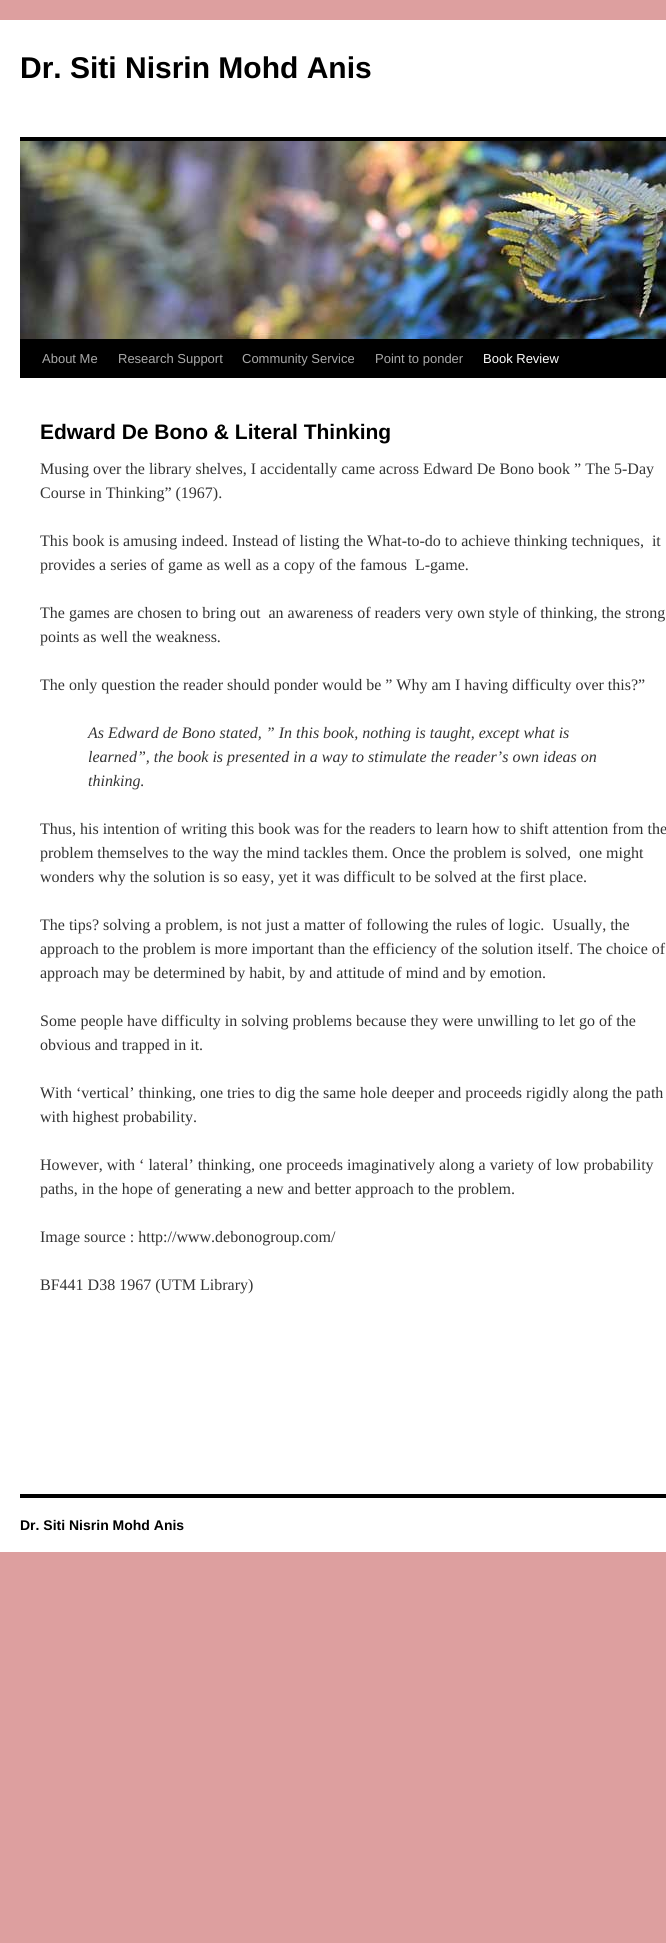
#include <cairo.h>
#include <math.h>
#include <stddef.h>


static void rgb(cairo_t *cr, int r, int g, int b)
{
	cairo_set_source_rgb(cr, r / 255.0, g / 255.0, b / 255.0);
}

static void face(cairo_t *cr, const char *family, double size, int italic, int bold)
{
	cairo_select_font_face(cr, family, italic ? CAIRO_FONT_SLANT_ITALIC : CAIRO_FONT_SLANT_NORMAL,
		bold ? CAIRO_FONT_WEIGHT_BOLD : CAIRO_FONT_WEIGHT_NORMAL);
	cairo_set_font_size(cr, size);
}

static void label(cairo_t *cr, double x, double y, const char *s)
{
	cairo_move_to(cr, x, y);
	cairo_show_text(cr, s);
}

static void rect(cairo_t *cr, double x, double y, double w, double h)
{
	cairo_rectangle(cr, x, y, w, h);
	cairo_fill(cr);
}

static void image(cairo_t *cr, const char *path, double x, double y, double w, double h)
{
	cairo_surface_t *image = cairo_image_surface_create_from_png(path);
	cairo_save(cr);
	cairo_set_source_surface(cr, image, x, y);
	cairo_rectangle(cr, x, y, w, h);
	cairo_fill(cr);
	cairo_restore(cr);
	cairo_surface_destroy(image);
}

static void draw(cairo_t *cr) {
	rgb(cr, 221, 159, 159);
	cairo_paint(cr);
	rgb(cr, 255, 255, 255);
	rect(cr, 0, 20, 666, 1532);
	face(cr, "Liberation Sans", 30, 0, 1);
	rgb(cr, 0, 0, 0);
	label(cr, 20, 78, "Dr. Siti Nisrin Mohd Anis");
	rect(cr, 20, 137, 646, 4);
	rect(cr, 20, 339, 646, 39);
	image(cr, "image0.png", 20, 141, 646, 198);
	face(cr, "Liberation Sans", 13, 0, 0);
	rgb(cr, 170, 170, 170);
	label(cr, 42, 363, "About Me");
	label(cr, 118, 363, "Research Support");
	label(cr, 242, 363, "Community Service");
	label(cr, 375, 363, "Point to ponder");
	rgb(cr, 255, 255, 255);
	label(cr, 483, 363, "Book Review");
	face(cr, "Liberation Sans", 21, 0, 1);
	rgb(cr, 0, 0, 0);
	label(cr, 40, 439, "Edward De Bono & Literal Thinking");
	face(cr, "Liberation Serif", 16, 0, 0);
	rgb(cr, 51, 51, 51);
	label(cr, 40, 474, "Musing over the library shelves, I accidentally came across Edward De Bono book ” The 5-Day");
	label(cr, 40, 498, "Course in Thinking” (1967).");
	label(cr, 40, 546, "This book is amusing indeed. Instead of listing the What-to-do to achieve thinking techniques,  it");
	label(cr, 40, 570, "provides a series of game as well as a copy of the famous  L-game.");
	label(cr, 40, 618, "The games are chosen to bring out  an awareness of readers very own style of thinking, the strong");
	label(cr, 40, 642, "points as well the weakness.");
	label(cr, 40, 690, "The only question the reader should ponder would be ” Why am I having difficulty over this?”");
	face(cr, "Liberation Serif", 16, 1, 0);
	label(cr, 88, 738, "As Edward de Bono stated, ” In this book, nothing is taught, except what is");
	label(cr, 88, 762, "learned”, the book is presented in a way to stimulate the reader’s own ideas on");
	label(cr, 88, 786, "thinking.");
	face(cr, "Liberation Serif", 16, 0, 0);
	label(cr, 40, 834, "Thus, his intention of writing this book was for the readers to learn how to shift attention from the");
	label(cr, 40, 858, "problem themselves to the way the mind tackles them. Once the problem is solved,  one might");
	label(cr, 40, 882, "wonders why the solution is so easy, yet it was difficult to be solved at the first place.");
	label(cr, 40, 930, "The tips? solving a problem, is not just a matter of following the rules of logic.  Usually, the");
	label(cr, 40, 954, "approach to the problem is more important than the efficiency of the solution itself. The choice of");
	label(cr, 40, 978, "approach may be determined by habit, by and attitude of mind and by emotion.");
	label(cr, 40, 1026, "Some people have difficulty in solving problems because they were unwilling to let go of the");
	label(cr, 40, 1050, "obvious and trapped in it.");
	label(cr, 40, 1098, "With ‘vertical’ thinking, one tries to dig the same hole deeper and proceeds rigidly along the path");
	label(cr, 40, 1122, "with highest probability.");
	label(cr, 40, 1170, "However, with ‘ lateral’ thinking, one proceeds imaginatively along a variety of low probability");
	label(cr, 40, 1194, "paths, in the hope of generating a new and better approach to the problem.");
	label(cr, 40, 1242, "Image source : http://www.debonogroup.com/");
	label(cr, 40, 1290, "BF441 D38 1967 (UTM Library)");
	rgb(cr, 0, 0, 0);
	rect(cr, 20, 1494, 646, 4);
	face(cr, "Liberation Sans", 14, 0, 1);
	label(cr, 20, 1530, "Dr. Siti Nisrin Mohd Anis");
}

int main(void) {
	cairo_surface_t *surface = cairo_image_surface_create(CAIRO_FORMAT_RGB24, 666, 1943);
	cairo_t *cr = cairo_create(surface);
	cairo_font_options_t *options = cairo_font_options_create();
	cairo_font_options_set_hint_metrics(options, CAIRO_HINT_METRICS_OFF);
	cairo_font_options_set_hint_style(options, CAIRO_HINT_STYLE_NONE);
	cairo_set_font_options(cr, options);
	cairo_set_miter_limit(cr, 4);
	draw(cr);
	cairo_surface_write_to_png(surface, "render.png");
	cairo_font_options_destroy(options);
	cairo_destroy(cr);
	cairo_surface_destroy(surface);
	return 0;
}
